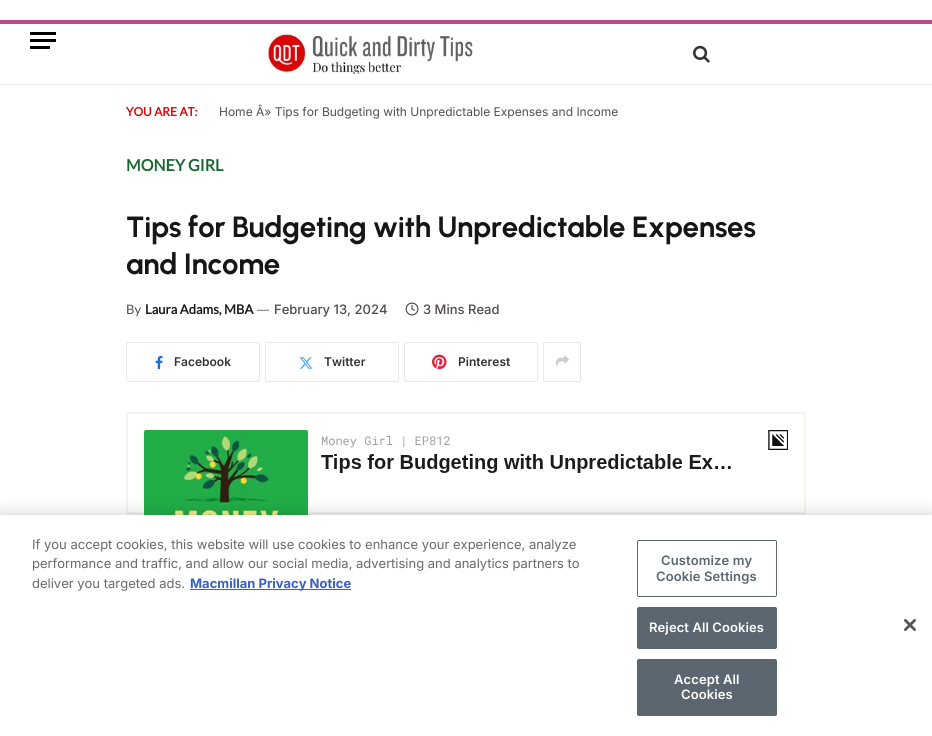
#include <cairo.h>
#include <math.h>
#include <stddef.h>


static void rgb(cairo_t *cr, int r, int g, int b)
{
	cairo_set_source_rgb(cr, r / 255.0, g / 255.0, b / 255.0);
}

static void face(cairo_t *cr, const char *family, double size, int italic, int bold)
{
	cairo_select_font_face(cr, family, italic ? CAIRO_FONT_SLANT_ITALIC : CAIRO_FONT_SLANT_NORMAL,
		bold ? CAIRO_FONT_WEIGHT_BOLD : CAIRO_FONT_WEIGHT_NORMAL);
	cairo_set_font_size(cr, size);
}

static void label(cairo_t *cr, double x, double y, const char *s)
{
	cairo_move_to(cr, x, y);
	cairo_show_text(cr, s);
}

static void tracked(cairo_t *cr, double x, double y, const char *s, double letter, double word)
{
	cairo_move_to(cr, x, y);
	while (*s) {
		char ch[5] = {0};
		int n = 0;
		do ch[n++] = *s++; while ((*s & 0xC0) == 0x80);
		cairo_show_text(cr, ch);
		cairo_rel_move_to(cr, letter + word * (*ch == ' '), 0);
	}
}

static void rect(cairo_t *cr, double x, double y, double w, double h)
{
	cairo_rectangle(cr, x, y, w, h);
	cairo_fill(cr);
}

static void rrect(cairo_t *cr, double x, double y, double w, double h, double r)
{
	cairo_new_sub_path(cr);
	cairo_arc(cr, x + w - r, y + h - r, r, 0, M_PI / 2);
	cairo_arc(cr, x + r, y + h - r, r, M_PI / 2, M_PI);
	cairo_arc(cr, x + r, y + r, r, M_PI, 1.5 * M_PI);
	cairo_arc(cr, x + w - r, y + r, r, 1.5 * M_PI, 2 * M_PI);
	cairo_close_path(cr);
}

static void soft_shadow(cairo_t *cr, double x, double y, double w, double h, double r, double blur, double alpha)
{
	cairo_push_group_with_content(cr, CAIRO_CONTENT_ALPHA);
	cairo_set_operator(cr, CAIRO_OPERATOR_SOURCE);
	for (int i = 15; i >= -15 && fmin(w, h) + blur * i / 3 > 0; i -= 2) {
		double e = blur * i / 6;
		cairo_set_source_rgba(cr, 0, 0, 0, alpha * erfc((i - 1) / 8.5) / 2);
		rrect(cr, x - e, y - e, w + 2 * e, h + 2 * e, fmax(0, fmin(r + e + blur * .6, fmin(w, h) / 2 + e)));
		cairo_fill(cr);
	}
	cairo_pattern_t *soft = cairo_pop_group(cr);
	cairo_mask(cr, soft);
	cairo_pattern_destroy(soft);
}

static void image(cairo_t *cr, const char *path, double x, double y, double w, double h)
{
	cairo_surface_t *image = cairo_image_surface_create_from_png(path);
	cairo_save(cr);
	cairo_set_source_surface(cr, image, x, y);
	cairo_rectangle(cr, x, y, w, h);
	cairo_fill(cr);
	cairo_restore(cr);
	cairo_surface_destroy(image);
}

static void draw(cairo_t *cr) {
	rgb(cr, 255, 255, 255);
	cairo_paint(cr);
	rgb(cr, 186, 73, 148);
	rect(cr, 0, 20, 932, 4);
	rgb(cr, 232, 232, 232);
	rect(cr, 0, 84, 932, 1);
	rgb(cr, 0, 0, 0);
	rect(cr, 30, 46, 20, 3);
	rect(cr, 30, 32, 26, 3);
	rect(cr, 30, 39, 26, 3);
	image(cr, "image0.png", 268, 34, 205, 40);
	image(cr, "image1.png", 693, 45, 17, 18);
	face(cr, "Lato", 12, 0, 1);
	rgb(cr, 219, 3, 3);
	label(cr, 126, 116, "YOU ARE AT:");
	face(cr, "Inter", 12, 0, 0);
	rgb(cr, 80, 80, 80);
	label(cr, 219, 116, "Home Â» Tips for Budgeting with Unpredictable Expenses and Income");
	face(cr, "Lato", 16, 0, 1);
	rgb(cr, 21, 102, 44);
	label(cr, 126, 171, "MONEY GIRL");
	face(cr, "Urbanist", 29.25, 0, 1);
	rgb(cr, 22, 22, 22);
	tracked(cr, 126, 237, "Tips for Budgeting with Unpredictable Expenses", -0.3, 0);
	tracked(cr, 126, 274, "and Income", -0.3, 0);
	face(cr, "Lato", 13, 0, 0);
	rgb(cr, 80, 80, 80);
	label(cr, 126, 314, "By");
	face(cr, "Lato", 13, 0, 1);
	rgb(cr, 22, 22, 22);
	label(cr, 145, 314, "Laura Adams, MBA");
	face(cr, "Inter Medium", 12, 0, 0);
	rgb(cr, 138, 138, 138);
	label(cr, 257, 314, "—");
	face(cr, "Inter Medium", 13, 0, 0);
	rgb(cr, 81, 72, 72);
	label(cr, 274, 314, "February 13, 2024");
	image(cr, "image2.png", 405, 302, 14, 14);
	label(cr, 423, 314, "3 Mins Read");
	rrect(cr, 126.5, 342.5, 133, 39, 1.5);
	rgb(cr, 232, 232, 232);
	cairo_set_line_width(cr, 1);
	cairo_stroke(cr);
	image(cr, "image3.png", 155, 356, 8, 13);
	face(cr, "Inter SemiBold", 12, 0, 0);
	rgb(cr, 51, 51, 51);
	label(cr, 174, 366, "Facebook");
	rrect(cr, 265.5, 342.5, 133, 39, 1.5);
	rgb(cr, 232, 232, 232);
	cairo_stroke(cr);
	image(cr, "image4.png", 299, 357, 14, 12);
	rgb(cr, 51, 51, 51);
	label(cr, 324, 366, "Twitter");
	rrect(cr, 404.5, 342.5, 133, 39, 1.5);
	rgb(cr, 232, 232, 232);
	cairo_stroke(cr);
	image(cr, "image5.png", 432, 354, 15, 16);
	rgb(cr, 51, 51, 51);
	label(cr, 458, 366, "Pinterest");
	rrect(cr, 543.5, 342.5, 37, 39, 1.5);
	rgb(cr, 232, 232, 232);
	cairo_stroke(cr);
	image(cr, "image6.png", 556, 355, 13, 12);
	image(cr, "image7.png", 126, 412, 680, 103);
	rgb(cr, 0, 0, 0);
	soft_shadow(cr, 0, 515, 932, 221, 0, 9, 0.2);
	rgb(cr, 255, 255, 255);
	rect(cr, 0, 515, 932, 221);
	face(cr, "Inter", 13, 0, 0);
	rgb(cr, 105, 105, 105);
	label(cr, 32, 549, "If you accept cookies, this website will use cookies to enhance your experience, analyze");
	label(cr, 32, 568, "performance and traffic, and allow our social media, advertising and analytics partners to");
	label(cr, 32, 588, "deliver you targeted ads.");
	rgb(cr, 56, 96, 190);
	rect(cr, 190, 589, 161, 1);
	face(cr, "Inter", 13, 0, 1);
	label(cr, 190, 588, "Macmillan Privacy Notice");
	rrect(cr, 637.5, 540.5, 139, 56, 1.5);
	rgb(cr, 91, 102, 112);
	cairo_stroke(cr);
	face(cr, "Inter SemiBold", 13, 0, 0);
	tracked(cr, 661, 565, "Customize my", 0.1, 0);
	tracked(cr, 656, 581, "Cookie Settings", 0.1, 0);
	rrect(cr, 637.5, 607.5, 139, 41, 1.5);
	cairo_fill_preserve(cr);
	cairo_stroke(cr);
	rgb(cr, 255, 255, 255);
	tracked(cr, 649, 632, "Reject All Cookies", 0.1, 0);
	rgb(cr, 91, 102, 112);
	rrect(cr, 637.5, 659.5, 139, 56, 1.5);
	cairo_fill_preserve(cr);
	cairo_stroke(cr);
	rgb(cr, 255, 255, 255);
	tracked(cr, 674, 684, "Accept All", 0.1, 0);
	tracked(cr, 681, 699, "Cookies", 0.1, 0);
	image(cr, "image8.png", 904, 619, 12, 12);
}

int main(void) {
	cairo_surface_t *surface = cairo_image_surface_create(CAIRO_FORMAT_RGB24, 932, 736);
	cairo_t *cr = cairo_create(surface);
	cairo_font_options_t *options = cairo_font_options_create();
	cairo_font_options_set_hint_metrics(options, CAIRO_HINT_METRICS_OFF);
	cairo_font_options_set_hint_style(options, CAIRO_HINT_STYLE_NONE);
	cairo_set_font_options(cr, options);
	cairo_set_miter_limit(cr, 4);
	draw(cr);
	cairo_surface_write_to_png(surface, "render.png");
	cairo_font_options_destroy(options);
	cairo_destroy(cr);
	cairo_surface_destroy(surface);
	return 0;
}
